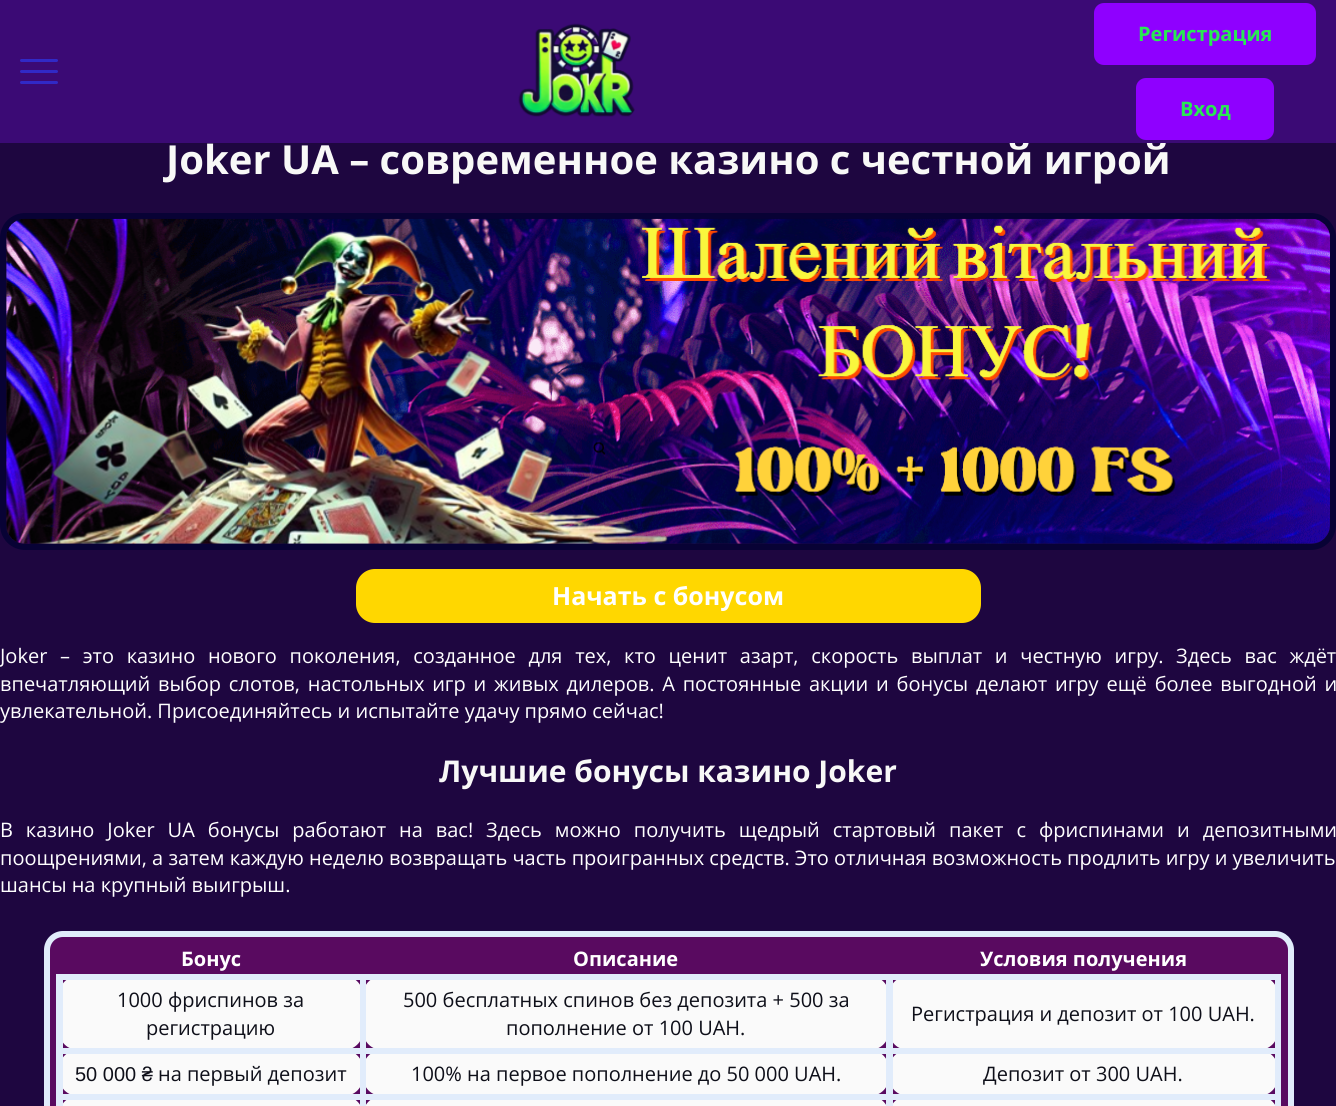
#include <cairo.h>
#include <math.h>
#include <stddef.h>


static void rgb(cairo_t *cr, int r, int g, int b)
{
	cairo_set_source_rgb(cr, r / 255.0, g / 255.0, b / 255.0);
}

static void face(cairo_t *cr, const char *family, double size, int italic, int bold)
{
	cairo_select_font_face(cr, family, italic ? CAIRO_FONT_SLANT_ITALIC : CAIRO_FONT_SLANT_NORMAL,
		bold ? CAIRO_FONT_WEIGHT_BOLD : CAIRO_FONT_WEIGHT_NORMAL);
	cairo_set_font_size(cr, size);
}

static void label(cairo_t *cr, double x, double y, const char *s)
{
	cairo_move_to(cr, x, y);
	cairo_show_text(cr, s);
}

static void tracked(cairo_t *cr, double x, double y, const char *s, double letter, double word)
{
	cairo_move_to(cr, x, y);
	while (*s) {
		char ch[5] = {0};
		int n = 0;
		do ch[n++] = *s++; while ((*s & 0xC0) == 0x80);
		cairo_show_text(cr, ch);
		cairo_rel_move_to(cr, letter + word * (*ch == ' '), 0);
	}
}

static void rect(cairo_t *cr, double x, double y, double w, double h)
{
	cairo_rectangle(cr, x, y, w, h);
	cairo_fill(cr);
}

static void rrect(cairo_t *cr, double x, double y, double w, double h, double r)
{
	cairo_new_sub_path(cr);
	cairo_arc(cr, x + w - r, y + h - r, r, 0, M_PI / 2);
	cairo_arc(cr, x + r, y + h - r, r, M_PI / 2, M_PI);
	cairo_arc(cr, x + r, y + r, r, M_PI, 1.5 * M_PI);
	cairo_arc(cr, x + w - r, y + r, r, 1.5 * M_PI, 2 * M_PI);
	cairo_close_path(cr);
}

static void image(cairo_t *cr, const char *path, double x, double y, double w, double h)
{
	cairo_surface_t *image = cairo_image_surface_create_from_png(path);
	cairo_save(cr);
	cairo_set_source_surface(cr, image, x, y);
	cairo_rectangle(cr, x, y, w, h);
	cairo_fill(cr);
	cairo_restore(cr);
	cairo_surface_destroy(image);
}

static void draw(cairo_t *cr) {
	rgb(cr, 30, 6, 64);
	cairo_paint(cr);
	face(cr, "Open Sans", 40, 0, 1);
	rgb(cr, 248, 248, 247);
	label(cr, 166, 174, "Joker UA – современное казино с честной игрой");
	rgb(cr, 59, 10, 117);
	rect(cr, 0, 0, 1336, 143);
	rgb(cr, 49, 41, 198);
	rrect(cr, 20, 59, 38, 3, 1.5);
	cairo_fill(cr);
	rrect(cr, 20, 70, 38, 3, 1.5);
	cairo_fill(cr);
	rrect(cr, 20, 81, 38, 3, 1.5);
	cairo_fill(cr);
	image(cr, "image0.png", 518, 23, 117, 94);
	rgb(cr, 143, 0, 255);
	rrect(cr, 1094, 3, 222, 62, 10);
	cairo_fill(cr);
	face(cr, "Open Sans", 20, 0, 1);
	rgb(cr, 41, 233, 83);
	label(cr, 1138, 41, "Регистрация");
	rgb(cr, 143, 0, 255);
	rrect(cr, 1136, 78, 138, 62, 10);
	cairo_fill(cr);
	rgb(cr, 41, 233, 83);
	label(cr, 1180, 116, "Вход");
	rrect(cr, 3, 216, 1330, 331, 22);
	rgb(cr, 8, 2, 53);
	cairo_set_line_width(cr, 6);
	cairo_stroke(cr);
	image(cr, "image1.png", 6, 218, 1324, 326);
	rgb(cr, 255, 215, 0);
	rrect(cr, 358, 571, 621, 50, 17);
	cairo_fill_preserve(cr);
	cairo_set_line_width(cr, 4);
	cairo_stroke(cr);
	face(cr, "Open Sans", 25, 0, 1);
	rgb(cr, 255, 255, 255);
	label(cr, 552, 605, "Начать с бонусом");
	face(cr, "Open Sans", 20, 0, 0);
	tracked(cr, 0, 663, "Joker – это казино нового поколения, созданное для тех, кто ценит азарт, скорость выплат и честную игру. Здесь вас ждёт", 0, 7.5);
	tracked(cr, 0, 691, "впечатляющий выбор слотов, настольных игр и живых дилеров. А постоянные акции и бонусы делают игру ещё более выгодной и", 0, 2.6);
	label(cr, 0, 718, "увлекательной. Присоединяйтесь и испытайте удачу прямо сейчас!");
	face(cr, "Open Sans", 30, 0, 1);
	rgb(cr, 248, 248, 247);
	label(cr, 439, 782, "Лучшие бонусы казино Joker");
	face(cr, "Open Sans", 20, 0, 0);
	rgb(cr, 255, 255, 255);
	tracked(cr, 0, 837, "В казино Joker UA бонусы работают на вас! Здесь можно получить щедрый стартовый пакет с фриспинами и депозитными", 0, 7.75);
	label(cr, 0, 865, "поощрениями, а затем каждую неделю возвращать часть проигранных средств. Это отличная возможность продлить игру и увеличить");
	label(cr, 0, 892, "шансы на крупный выигрыш.");
	rgb(cr, 89, 10, 96);
	rrect(cr, 47, 934, 1244, 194, 16);
	cairo_fill_preserve(cr);
	rgb(cr, 225, 236, 251);
	cairo_set_line_width(cr, 6);
	cairo_stroke(cr);
	face(cr, "Open Sans", 20, 0, 1);
	rgb(cr, 255, 255, 255);
	label(cr, 181, 966, "Бонус");
	label(cr, 573, 966, "Описание");
	label(cr, 980, 966, "Условия получения");
	rgb(cr, 250, 250, 250);
	rrect(cr, 59, 976, 304, 74, 19);
	cairo_fill(cr);
	rrect(cr, 363, 976, 526, 74, 19);
	cairo_fill(cr);
	rrect(cr, 889, 976, 389, 74, 19);
	cairo_fill(cr);
	rgb(cr, 225, 236, 251);
	rect(cr, 886, 974, 395, 6);
	rgb(cr, 250, 250, 250);
	rrect(cr, 363, 1050, 526, 46, 19);
	cairo_fill(cr);
	rrect(cr, 59, 1050, 304, 46, 19);
	cairo_fill(cr);
	rrect(cr, 889, 1050, 389, 46, 19);
	cairo_fill(cr);
	rgb(cr, 225, 236, 251);
	rect(cr, 886, 1048, 395, 6);
	rgb(cr, 250, 250, 250);
	rrect(cr, 363, 1096, 526, 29, 19);
	cairo_fill(cr);
	rrect(cr, 59, 1096, 304, 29, 19);
	cairo_fill(cr);
	rrect(cr, 889, 1096, 389, 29, 19);
	cairo_fill(cr);
	rgb(cr, 225, 236, 251);
	rect(cr, 886, 1094, 395, 6);
	rect(cr, 886, 1094, 7, 12);
	rect(cr, 360, 1094, 533, 6);
	rect(cr, 886, 1048, 7, 52);
	rect(cr, 360, 1048, 533, 6);
	rect(cr, 886, 974, 7, 80);
	rect(cr, 360, 974, 533, 6);
	rect(cr, 360, 1094, 6, 12);
	rect(cr, 56, 1094, 310, 6);
	rect(cr, 360, 1048, 6, 52);
	rect(cr, 56, 1048, 310, 6);
	rect(cr, 360, 974, 6, 80);
	rect(cr, 56, 974, 310, 6);
	rect(cr, 56, 1094, 7, 12);
	rect(cr, 56, 1048, 7, 52);
	rect(cr, 56, 974, 7, 80);
	face(cr, "Open Sans", 20, 0, 0);
	rgb(cr, 14, 15, 25);
	label(cr, 117, 1007, "1000 фриспинов за");
	label(cr, 146, 1035, "регистрацию");
	label(cr, 403, 1007, "500 бесплатных спинов без депозита + 500 за");
	label(cr, 506, 1035, "пополнение от 100 UAH.");
	rgb(cr, 225, 236, 251);
	rect(cr, 1275, 1094, 6, 12);
	rect(cr, 1275, 1048, 6, 52);
	rect(cr, 1275, 974, 6, 80);
	rgb(cr, 14, 15, 25);
	label(cr, 911, 1021, "Регистрация и депозит от 100 UAH.");
	face(cr, "Liberation Sans", 20, 0, 0);
	label(cr, 75, 1081, "50 000 ₴");
	face(cr, "Open Sans", 20, 0, 0);
	label(cr, 158, 1081, "на первый депозит");
	label(cr, 411, 1081, "100% на первое пополнение до 50 000 UAH.");
	label(cr, 983, 1081, "Депозит от 300 UAH.");
}

int main(void) {
	cairo_surface_t *surface = cairo_image_surface_create(CAIRO_FORMAT_RGB24, 1336, 1106);
	cairo_t *cr = cairo_create(surface);
	cairo_font_options_t *options = cairo_font_options_create();
	cairo_font_options_set_hint_metrics(options, CAIRO_HINT_METRICS_OFF);
	cairo_font_options_set_hint_style(options, CAIRO_HINT_STYLE_NONE);
	cairo_set_font_options(cr, options);
	cairo_set_miter_limit(cr, 4);
	draw(cr);
	cairo_surface_write_to_png(surface, "render.png");
	cairo_font_options_destroy(options);
	cairo_destroy(cr);
	cairo_surface_destroy(surface);
	return 0;
}
